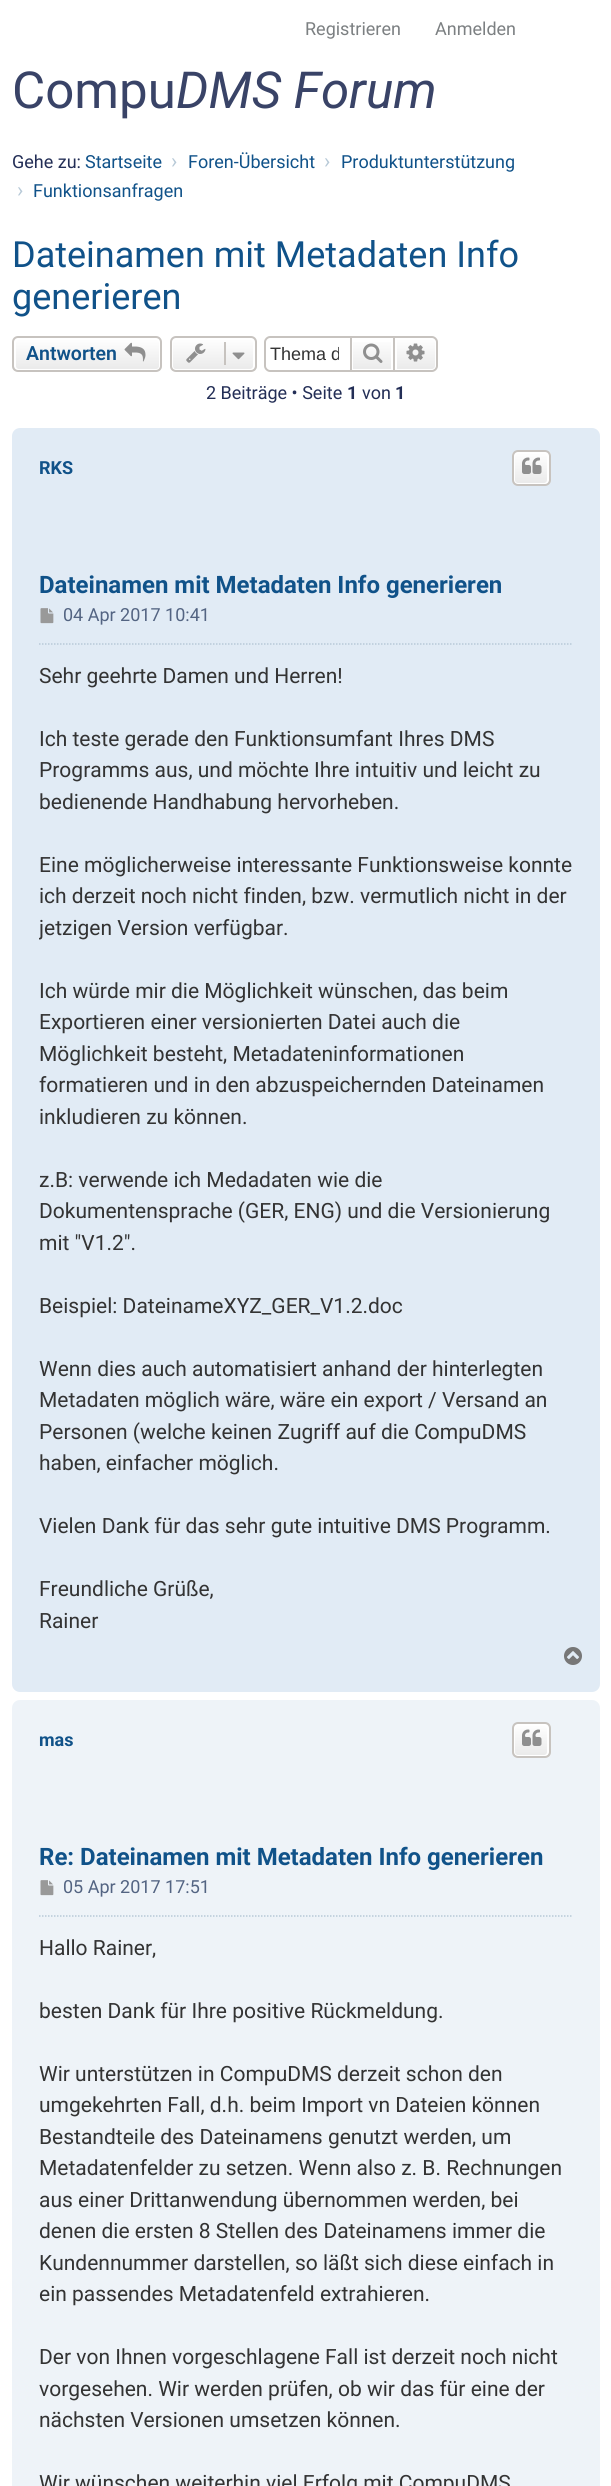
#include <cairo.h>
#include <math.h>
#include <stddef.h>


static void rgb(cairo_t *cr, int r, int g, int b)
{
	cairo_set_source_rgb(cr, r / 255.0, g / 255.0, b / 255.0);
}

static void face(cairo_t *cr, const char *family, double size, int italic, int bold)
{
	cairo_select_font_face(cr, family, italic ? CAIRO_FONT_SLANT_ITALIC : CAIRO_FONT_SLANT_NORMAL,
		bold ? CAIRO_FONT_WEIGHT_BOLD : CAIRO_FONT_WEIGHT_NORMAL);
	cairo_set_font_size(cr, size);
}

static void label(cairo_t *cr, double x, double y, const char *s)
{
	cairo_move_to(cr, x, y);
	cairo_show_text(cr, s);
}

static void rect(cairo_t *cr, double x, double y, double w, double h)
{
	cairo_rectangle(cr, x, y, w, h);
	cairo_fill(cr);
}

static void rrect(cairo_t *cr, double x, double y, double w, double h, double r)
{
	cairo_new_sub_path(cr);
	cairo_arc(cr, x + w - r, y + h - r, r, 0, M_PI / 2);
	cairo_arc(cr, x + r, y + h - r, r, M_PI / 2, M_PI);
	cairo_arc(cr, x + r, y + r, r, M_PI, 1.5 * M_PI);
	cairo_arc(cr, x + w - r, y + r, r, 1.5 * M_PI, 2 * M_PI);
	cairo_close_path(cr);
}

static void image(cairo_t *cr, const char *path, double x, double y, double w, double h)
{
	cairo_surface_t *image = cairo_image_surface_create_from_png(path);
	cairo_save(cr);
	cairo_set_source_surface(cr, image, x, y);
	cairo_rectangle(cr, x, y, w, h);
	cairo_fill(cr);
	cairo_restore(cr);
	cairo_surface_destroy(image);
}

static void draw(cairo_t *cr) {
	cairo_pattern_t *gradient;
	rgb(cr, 255, 255, 255);
	cairo_paint(cr);
	face(cr, "Roboto", 18, 0, 0);
	rgb(cr, 124, 128, 130);
	label(cr, 305, 35, "Registrieren");
	label(cr, 435, 35, "Anmelden");
	face(cr, "Roboto", 51, 0, 0);
	rgb(cr, 57, 67, 103);
	label(cr, 12, 108, "Compu");
	face(cr, "Roboto", 51, 1, 0);
	label(cr, 176, 108, "DMS Forum");
	face(cr, "Roboto", 18, 0, 0);
	rgb(cr, 35, 46, 86);
	label(cr, 12, 168, "Gehe zu:");
	rgb(cr, 16, 82, 137);
	label(cr, 85, 168, "Startseite");
	face(cr, "Roboto", 21, 0, 0);
	rgb(cr, 183, 201, 215);
	label(cr, 171, 168, "›");
	face(cr, "Roboto", 18, 0, 0);
	rgb(cr, 16, 82, 137);
	label(cr, 188, 168, "Foren-Übersicht");
	face(cr, "Roboto", 21, 0, 0);
	rgb(cr, 183, 201, 215);
	label(cr, 324, 168, "›");
	face(cr, "Roboto", 18, 0, 0);
	rgb(cr, 16, 82, 137);
	label(cr, 341, 168, "Produktunterstützung");
	face(cr, "Roboto", 21, 0, 0);
	rgb(cr, 183, 201, 215);
	label(cr, 17, 197, "›");
	face(cr, "Roboto", 18, 0, 0);
	rgb(cr, 16, 82, 137);
	label(cr, 33, 197, "Funktionsanfragen");
	face(cr, "Roboto", 36, 0, 0);
	label(cr, 12, 267, "Dateinamen mit Metadaten Info");
	label(cr, 12, 309, "generieren");
	cairo_save(cr);
	rrect(cr, 12, 336, 150, 36, 6);
	cairo_clip(cr);
	gradient = cairo_pattern_create_linear(87, 338, 87, 371);
	cairo_pattern_add_color_stop_rgba(gradient, 0, 1, 1, 1, 1);
	cairo_pattern_add_color_stop_rgba(gradient, 1, 0.914, 0.914, 0.914, 1);
	cairo_set_source(cr, gradient);
	cairo_pattern_destroy(gradient);
	rect(cr, 12, 338, 150, 33);
	cairo_restore(cr);
	rrect(cr, 15, 339, 145, 31, 4);
	rgb(cr, 255, 255, 255);
	cairo_stroke(cr);
	rrect(cr, 13, 337, 148, 34, 5);
	rgb(cr, 199, 195, 191);
	cairo_stroke(cr);
	face(cr, "Roboto SemiBold", 19.5, 0, 0);
	rgb(cr, 16, 82, 137);
	label(cr, 26, 360, "Antworten");
	image(cr, "image0.png", 124, 342, 22, 20);
	cairo_save(cr);
	rrect(cr, 170, 336, 87, 36, 6);
	cairo_clip(cr);
	gradient = cairo_pattern_create_linear(213, 338, 213, 371);
	cairo_pattern_add_color_stop_rgba(gradient, 0, 1, 1, 1, 1);
	cairo_pattern_add_color_stop_rgba(gradient, 1, 0.914, 0.914, 0.914, 1);
	cairo_set_source(cr, gradient);
	cairo_pattern_destroy(gradient);
	rect(cr, 170, 338, 87, 33);
	cairo_restore(cr);
	rrect(cr, 172, 339, 82, 31, 4);
	rgb(cr, 255, 255, 255);
	cairo_stroke(cr);
	rrect(cr, 171, 337, 85, 34, 5);
	rgb(cr, 199, 195, 191);
	cairo_stroke(cr);
	image(cr, "image1.png", 186, 343, 20, 20);
	rect(cr, 224, 342, 2, 23);
	image(cr, "image2.png", 232, 352, 13, 8);
	cairo_set_fill_rule(cr, CAIRO_FILL_RULE_EVEN_ODD);
	cairo_new_path(cr);
	cairo_move_to(cr, 270, 336);
	cairo_line_to(cr, 350, 336);
	cairo_line_to(cr, 350, 372);
	cairo_line_to(cr, 270, 372);
	cairo_curve_to(cr, 267, 372, 264, 369, 264, 366);
	cairo_line_to(cr, 264, 342);
	cairo_curve_to(cr, 264, 339, 267, 336, 270, 336);
	cairo_close_path(cr);
	cairo_move_to(cr, 270, 338);
	cairo_line_to(cr, 350, 338);
	cairo_line_to(cr, 350, 370);
	cairo_line_to(cr, 270, 370);
	cairo_curve_to(cr, 268, 370, 266, 368, 266, 366);
	cairo_line_to(cr, 266, 342);
	cairo_curve_to(cr, 266, 340, 268, 338, 270, 338);
	cairo_close_path(cr);
	cairo_fill(cr);
	cairo_save(cr);
	cairo_set_fill_rule(cr, CAIRO_FILL_RULE_WINDING);
	cairo_rectangle(cr, 270, 344, 69, 21);
	cairo_clip(cr);
	face(cr, "Liberation Sans", 18, 0, 0);
	rgb(cr, 51, 51, 51);
	label(cr, 270, 360, "Thema d");
	cairo_restore(cr);
	gradient = cairo_pattern_create_linear(372, 338, 372, 371);
	cairo_pattern_add_color_stop_rgba(gradient, 0, 1, 1, 1, 1);
	cairo_pattern_add_color_stop_rgba(gradient, 1, 0.914, 0.914, 0.914, 1);
	cairo_set_source(cr, gradient);
	cairo_pattern_destroy(gradient);
	rect(cr, 353, 342, 38, 27);
	cairo_rectangle(cr, 351, 337, 43, 34);
	rgb(cr, 199, 195, 191);
	cairo_stroke(cr);
	image(cr, "image3.png", 363, 343, 20, 20);
	gradient = cairo_pattern_create_linear(416, 338, 416, 371);
	cairo_pattern_add_color_stop_rgba(gradient, 0, 1, 1, 1, 1);
	cairo_pattern_add_color_stop_rgba(gradient, 1, 0.914, 0.914, 0.914, 1);
	cairo_set_source(cr, gradient);
	cairo_pattern_destroy(gradient);
	cairo_new_path(cr);
	cairo_move_to(cr, 396, 339);
	cairo_line_to(cr, 432, 339);
	cairo_curve_to(cr, 434, 339, 436, 341, 436, 343);
	cairo_line_to(cr, 436, 366);
	cairo_curve_to(cr, 436, 368, 434, 370, 432, 370);
	cairo_line_to(cr, 396, 370);
	cairo_close_path(cr);
	cairo_fill_preserve(cr);
	rgb(cr, 255, 255, 255);
	cairo_stroke(cr);
	rgb(cr, 199, 195, 191);
	cairo_new_path(cr);
	cairo_move_to(cr, 394, 336);
	cairo_line_to(cr, 432, 336);
	cairo_curve_to(cr, 435, 336, 438, 339, 438, 342);
	cairo_line_to(cr, 438, 366);
	cairo_curve_to(cr, 438, 369, 435, 372, 432, 372);
	cairo_line_to(cr, 394, 372);
	cairo_close_path(cr);
	cairo_move_to(cr, 394, 338);
	cairo_line_to(cr, 432, 338);
	cairo_curve_to(cr, 434, 338, 436, 340, 436, 342);
	cairo_line_to(cr, 436, 366);
	cairo_curve_to(cr, 436, 368, 434, 370, 432, 370);
	cairo_line_to(cr, 394, 370);
	cairo_close_path(cr);
	cairo_fill(cr);
	image(cr, "image4.png", 406, 343, 19, 19);
	face(cr, "Roboto", 18, 0, 0);
	rgb(cr, 35, 46, 86);
	label(cr, 206, 399, "2 Beiträge • Seite");
	face(cr, "Roboto", 18, 0, 1);
	label(cr, 347, 399, "1");
	face(cr, "Roboto", 18, 0, 0);
	label(cr, 362, 399, "von");
	face(cr, "Roboto", 18, 0, 1);
	label(cr, 395, 399, "1");
	rgb(cr, 225, 235, 245);
	rrect(cr, 12, 428, 588, 1264, 8);
	cairo_fill(cr);
	rgb(cr, 16, 82, 137);
	label(cr, 39, 474, "RKS");
	cairo_save(cr);
	cairo_set_fill_rule(cr, CAIRO_FILL_RULE_WINDING);
	rrect(cr, 512, 450, 39, 36, 6);
	cairo_clip(cr);
	gradient = cairo_pattern_create_linear(531, 452, 531, 485);
	cairo_pattern_add_color_stop_rgba(gradient, 0, 1, 1, 1, 1);
	cairo_pattern_add_color_stop_rgba(gradient, 1, 0.914, 0.914, 0.914, 1);
	cairo_set_source(cr, gradient);
	cairo_pattern_destroy(gradient);
	rect(cr, 512, 452, 39, 33);
	cairo_restore(cr);
	rrect(cr, 514, 453, 34, 31, 4);
	rgb(cr, 255, 255, 255);
	cairo_stroke(cr);
	rrect(cr, 513, 451, 37, 34, 5);
	rgb(cr, 199, 195, 191);
	cairo_stroke(cr);
	image(cr, "image5.png", 522, 457, 20, 17);
	face(cr, "Roboto", 24, 0, 1);
	rgb(cr, 16, 82, 137);
	label(cr, 39, 593, "Dateinamen mit Metadaten Info generieren");
	cairo_new_path(cr);
	cairo_move_to(cr, 39, 644);
	cairo_line_to(cr, 573, 644);
	rgb(cr, 183, 201, 215);
	cairo_set_line_width(cr, 1.5);
	cairo_set_dash(cr, (double[]){1.5, 1.5}, 2, 0);
	cairo_stroke(cr);
	image(cr, "image6.png", 40, 608, 14, 16);
	face(cr, "Roboto", 18, 0, 0);
	rgb(cr, 83, 100, 130);
	label(cr, 63, 621, "04 Apr 2017 10:41");
	face(cr, "Roboto", 21, 0, 0);
	rgb(cr, 51, 51, 51);
	label(cr, 39, 683, "Sehr geehrte Damen und Herren!");
	label(cr, 39, 746, "Ich teste gerade den Funktionsumfant Ihres DMS");
	label(cr, 39, 777, "Programms aus, und möchte Ihre intuitiv und leicht zu");
	label(cr, 39, 809, "bedienende Handhabung hervorheben.");
	label(cr, 39, 872, "Eine möglicherweise interessante Funktionsweise konnte");
	label(cr, 39, 903, "ich derzeit noch nicht finden, bzw. vermutlich nicht in der");
	cairo_save(cr);
	cairo_set_fill_rule(cr, CAIRO_FILL_RULE_WINDING);
	cairo_rectangle(cr, 39, 660, 534, 978);
	cairo_clip(cr);
	label(cr, 39, 935, "jetzigen Version verfügbar.");
	cairo_restore(cr);
	label(cr, 39, 998, "Ich würde mir die Möglichkeit wünschen, das beim");
	label(cr, 39, 1029, "Exportieren einer versionierten Datei auch die");
	label(cr, 39, 1061, "Möglichkeit besteht, Metadateninformationen");
	label(cr, 39, 1092, "formatieren und in den abzuspeichernden Dateinamen");
	label(cr, 39, 1124, "inkludieren zu können.");
	label(cr, 39, 1187, "z.B: verwende ich Medadaten wie die");
	label(cr, 39, 1218, "Dokumentensprache (GER, ENG) und die Versionierung");
	label(cr, 39, 1250, "mit \"V1.2\".");
	label(cr, 39, 1313, "Beispiel: DateinameXYZ_GER_V1.2.doc");
	label(cr, 39, 1376, "Wenn dies auch automatisiert anhand der hinterlegten");
	label(cr, 39, 1407, "Metadaten möglich wäre, wäre ein export / Versand an");
	label(cr, 39, 1439, "Personen (welche keinen Zugriff auf die CompuDMS");
	label(cr, 39, 1470, "haben, einfacher möglich.");
	label(cr, 39, 1533, "Vielen Dank für das sehr gute intuitive DMS Programm.");
	label(cr, 39, 1596, "Freundliche Grüße,");
	label(cr, 39, 1628, "Rainer");
	image(cr, "image7.png", 564, 1647, 18, 18);
	rgb(cr, 238, 243, 248);
	rrect(cr, 12, 1700, 588, 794, 8);
	cairo_fill(cr);
	face(cr, "Roboto", 18, 0, 1);
	rgb(cr, 16, 82, 137);
	label(cr, 39, 1746, "mas");
	cairo_save(cr);
	cairo_set_fill_rule(cr, CAIRO_FILL_RULE_WINDING);
	rrect(cr, 512, 1722, 39, 36, 6);
	cairo_clip(cr);
	gradient = cairo_pattern_create_linear(531, 1724, 531, 1757);
	cairo_pattern_add_color_stop_rgba(gradient, 0, 1, 1, 1, 1);
	cairo_pattern_add_color_stop_rgba(gradient, 1, 0.914, 0.914, 0.914, 1);
	cairo_set_source(cr, gradient);
	cairo_pattern_destroy(gradient);
	rect(cr, 512, 1724, 39, 33);
	cairo_restore(cr);
	rrect(cr, 514, 1725, 34, 31, 4);
	rgb(cr, 255, 255, 255);
	cairo_set_line_width(cr, 2);
	cairo_set_dash(cr, NULL, 0, 0);
	cairo_stroke(cr);
	rrect(cr, 513, 1723, 37, 34, 5);
	rgb(cr, 199, 195, 191);
	cairo_stroke(cr);
	image(cr, "image5.png", 522, 1729, 20, 17);
	face(cr, "Roboto", 24, 0, 1);
	rgb(cr, 16, 82, 137);
	label(cr, 39, 1865, "Re: Dateinamen mit Metadaten Info generieren");
	cairo_new_path(cr);
	cairo_move_to(cr, 39, 1916);
	cairo_line_to(cr, 573, 1916);
	rgb(cr, 183, 201, 215);
	cairo_set_line_width(cr, 1.5);
	cairo_set_dash(cr, (double[]){1.5, 1.5}, 2, 0);
	cairo_stroke(cr);
	image(cr, "image8.png", 40, 1880, 14, 16);
	face(cr, "Roboto", 18, 0, 0);
	rgb(cr, 83, 100, 130);
	label(cr, 63, 1893, "05 Apr 2017 17:51");
	face(cr, "Roboto", 21, 0, 0);
	rgb(cr, 51, 51, 51);
	label(cr, 39, 1955, "Hallo Rainer,");
	label(cr, 39, 2018, "besten Dank für Ihre positive Rückmeldung.");
	label(cr, 39, 2081, "Wir unterstützen in CompuDMS derzeit schon den");
	label(cr, 39, 2112, "umgekehrten Fall, d.h. beim Import vn Dateien können");
	label(cr, 39, 2144, "Bestandteile des Dateinamens genutzt werden, um");
	label(cr, 39, 2175, "Metadatenfelder zu setzen. Wenn also z. B. Rechnungen");
	label(cr, 39, 2207, "aus einer Drittanwendung übernommen werden, bei");
	label(cr, 39, 2238, "denen die ersten 8 Stellen des Dateinamens immer die");
	label(cr, 39, 2270, "Kundennummer darstellen, so läßt sich diese einfach in");
	label(cr, 39, 2301, "ein passendes Metadatenfeld extrahieren.");
	label(cr, 39, 2364, "Der von Ihnen vorgeschlagene Fall ist derzeit noch nicht");
	label(cr, 39, 2396, "vorgesehen. Wir werden prüfen, ob wir das für eine der");
	label(cr, 39, 2427, "nächsten Versionen umsetzen können.");
	label(cr, 39, 2490, "Wir wünschen weiterhin viel Erfolg mit CompuDMS");
}

int main(void) {
	cairo_surface_t *surface = cairo_image_surface_create(CAIRO_FORMAT_RGB24, 611, 2486);
	cairo_t *cr = cairo_create(surface);
	cairo_font_options_t *options = cairo_font_options_create();
	cairo_font_options_set_hint_metrics(options, CAIRO_HINT_METRICS_OFF);
	cairo_font_options_set_hint_style(options, CAIRO_HINT_STYLE_NONE);
	cairo_set_font_options(cr, options);
	cairo_set_miter_limit(cr, 4);
	draw(cr);
	cairo_surface_write_to_png(surface, "render.png");
	cairo_font_options_destroy(options);
	cairo_destroy(cr);
	cairo_surface_destroy(surface);
	return 0;
}
